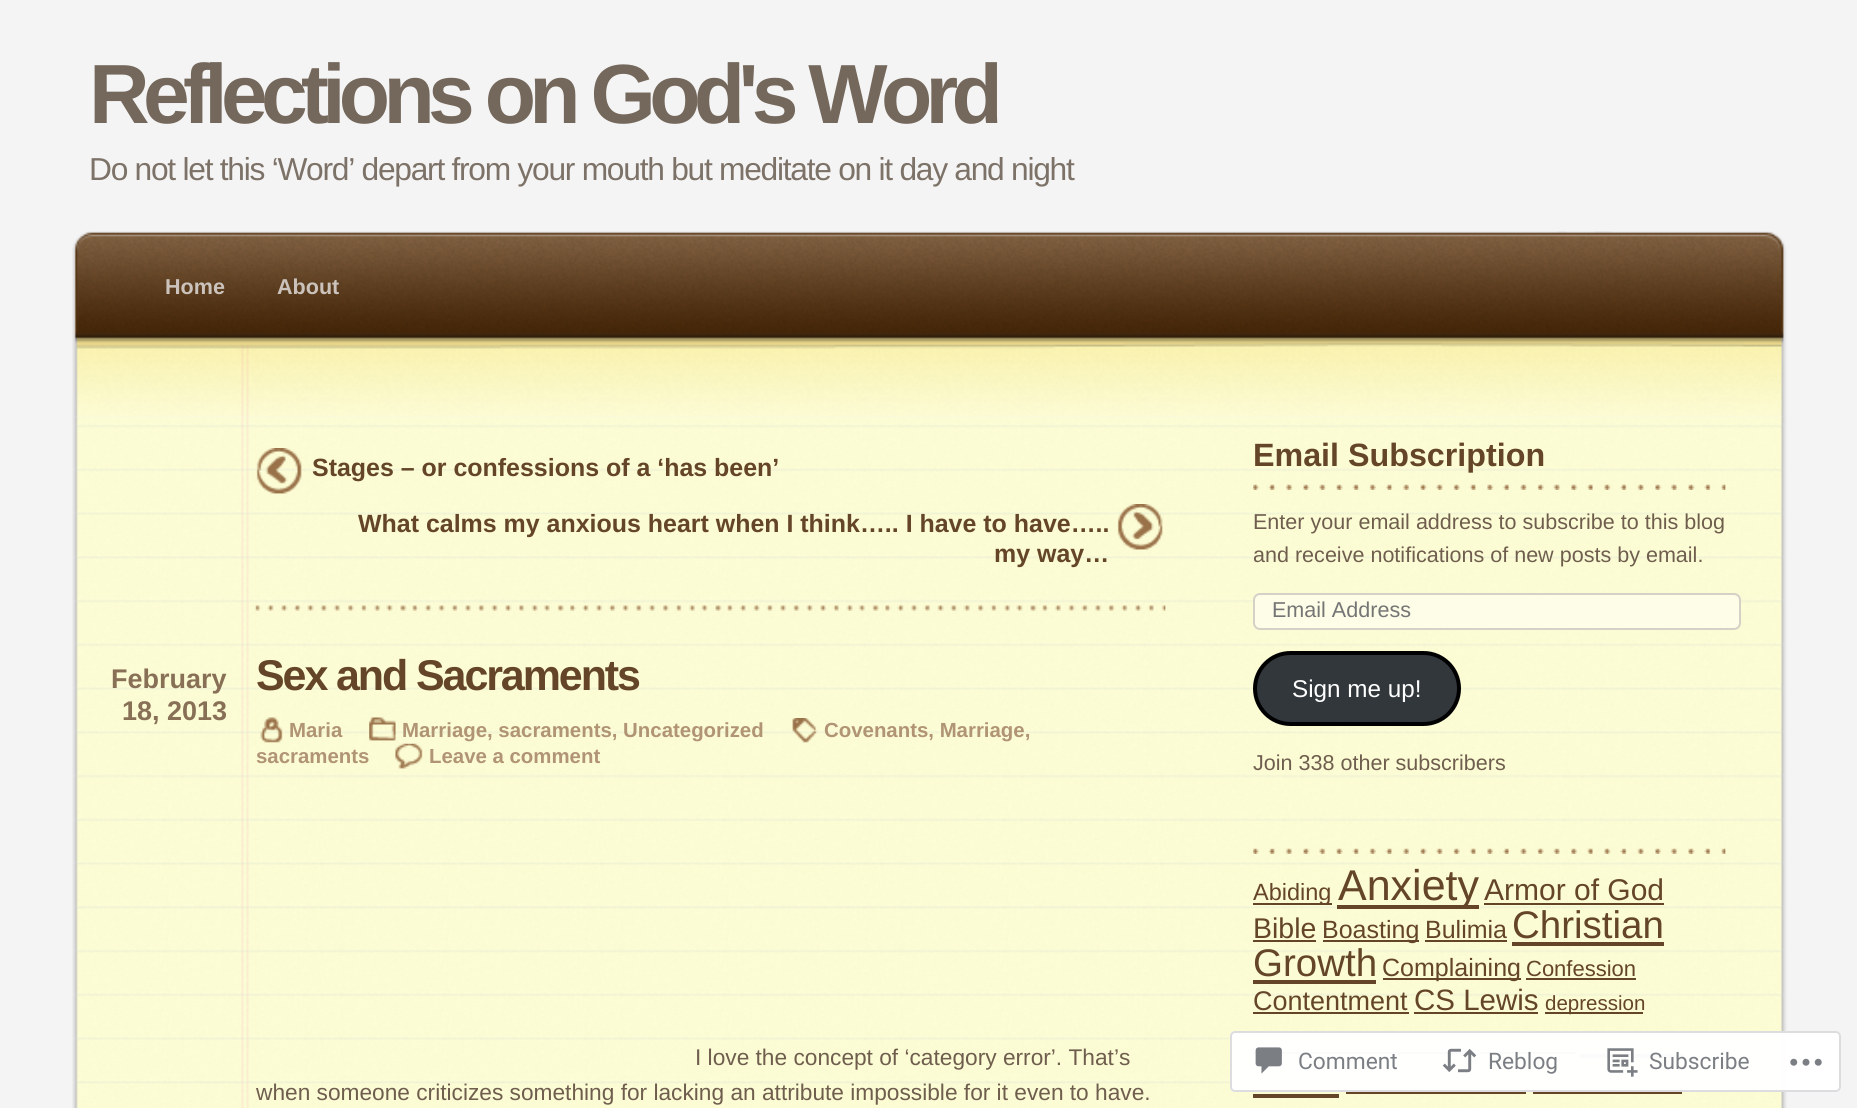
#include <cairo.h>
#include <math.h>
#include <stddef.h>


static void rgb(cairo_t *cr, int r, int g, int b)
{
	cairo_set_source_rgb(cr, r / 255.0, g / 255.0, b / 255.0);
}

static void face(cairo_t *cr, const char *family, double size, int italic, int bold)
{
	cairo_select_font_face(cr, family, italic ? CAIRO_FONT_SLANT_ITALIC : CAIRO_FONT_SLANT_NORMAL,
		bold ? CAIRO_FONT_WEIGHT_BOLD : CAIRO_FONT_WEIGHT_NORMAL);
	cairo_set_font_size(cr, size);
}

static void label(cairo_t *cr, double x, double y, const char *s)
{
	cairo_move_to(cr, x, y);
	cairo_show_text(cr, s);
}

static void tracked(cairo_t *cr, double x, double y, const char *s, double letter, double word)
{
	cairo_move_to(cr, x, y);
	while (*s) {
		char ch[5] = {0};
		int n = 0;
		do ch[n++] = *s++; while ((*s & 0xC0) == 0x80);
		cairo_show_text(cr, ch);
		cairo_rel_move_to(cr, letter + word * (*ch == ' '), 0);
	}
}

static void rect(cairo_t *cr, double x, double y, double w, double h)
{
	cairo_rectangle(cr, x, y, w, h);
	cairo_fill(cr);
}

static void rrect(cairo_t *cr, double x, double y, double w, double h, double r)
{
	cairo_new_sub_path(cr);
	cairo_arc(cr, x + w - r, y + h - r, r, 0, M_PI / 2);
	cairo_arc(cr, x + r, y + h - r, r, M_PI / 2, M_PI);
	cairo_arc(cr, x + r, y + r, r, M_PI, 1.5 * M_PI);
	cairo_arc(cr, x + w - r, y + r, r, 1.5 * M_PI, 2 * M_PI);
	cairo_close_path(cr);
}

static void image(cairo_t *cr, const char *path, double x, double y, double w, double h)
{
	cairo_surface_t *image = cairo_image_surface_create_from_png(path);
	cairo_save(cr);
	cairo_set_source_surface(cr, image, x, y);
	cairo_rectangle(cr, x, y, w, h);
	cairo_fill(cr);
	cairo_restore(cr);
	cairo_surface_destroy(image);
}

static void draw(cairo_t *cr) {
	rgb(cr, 245, 244, 244);
	cairo_paint(cr);
	image(cr, "image1.png", 72, 416, 1715, 692);
	image(cr, "image0.png", 72, 231, 1715, 186);
	face(cr, "Liberation Sans", 84, 0, 1);
	rgb(cr, 116, 104, 92);
	tracked(cr, 89, 123, "Reflections on God's Word", -6.7, 0);
	face(cr, "Liberation Sans", 31.75, 0, 0);
	rgb(cr, 124, 114, 104);
	tracked(cr, 89, 180, "Do not let this ‘Word’ depart from your mouth but meditate on it day and night", -1.27, 0);
	face(cr, "Liberation Sans", 21.55, 0, 1);
	rgb(cr, 203, 195, 187);
	label(cr, 165, 294, "Home");
	label(cr, 277, 294, "About");
	image(cr, "image2.png", 255, 605, 911, 6);
	image(cr, "image3.png", 256, 448, 46, 46);
	face(cr, "Liberation Sans", 24.95, 0, 1);
	rgb(cr, 100, 69, 39);
	label(cr, 312, 476, "Stages – or confessions of a ‘has been’");
	image(cr, "image4.png", 1117, 504, 46, 46);
	label(cr, 358, 532, "What calms my anxious heart when I think….. I have to have…..");
	label(cr, 994, 562, "my way…");
	face(cr, "Liberation Sans", 27, 0, 1);
	rgb(cr, 136, 112, 87);
	label(cr, 111, 688, "February");
	label(cr, 122, 720, "18, 2013");
	face(cr, "Liberation Sans", 43, 0, 1);
	rgb(cr, 100, 69, 39);
	tracked(cr, 256, 690, "Sex and Sacraments", -2.1, 0);
	image(cr, "image5.png", 260, 717, 23, 26);
	face(cr, "Liberation Sans", 20.4, 0, 1);
	rgb(cr, 176, 148, 115);
	label(cr, 289, 737, "Maria");
	image(cr, "image6.png", 369, 717, 27, 24);
	label(cr, 402, 737, "Marriage, sacraments, Uncategorized");
	image(cr, "image7.png", 792, 718, 26, 25);
	label(cr, 824, 737, "Covenants, Marriage,");
	label(cr, 256, 763, "sacraments");
	image(cr, "image8.png", 395, 743, 28, 26);
	label(cr, 429, 763, "Leave a comment");
	face(cr, "Liberation Sans", 22.7, 0, 0);
	rgb(cr, 111, 94, 78);
	label(cr, 695, 1065, "I love the concept of ‘category error’. That’s");
	label(cr, 256, 1100, "when someone criticizes something for lacking an attribute impossible for it even to have.");
	image(cr, "image9.png", 1253, 484, 473, 6);
	face(cr, "Liberation Sans", 32.25, 0, 1);
	rgb(cr, 100, 69, 39);
	label(cr, 1253, 466, "Email Subscription");
	face(cr, "Liberation Sans", 21.55, 0, 0);
	rgb(cr, 111, 94, 78);
	label(cr, 1253, 529, "Enter your email address to subscribe to this blog");
	label(cr, 1253, 562, "and receive notifications of new posts by email.");
	rgb(cr, 253, 253, 232);
	rrect(cr, 1254, 594, 486, 35, 6);
	cairo_fill_preserve(cr);
	rgb(cr, 214, 209, 199);
	cairo_stroke(cr);
	rgb(cr, 117, 117, 117);
	label(cr, 1272, 617, "Email Address");
	rgb(cr, 50, 55, 60);
	rrect(cr, 1255, 653, 204, 71, 35.5);
	cairo_fill_preserve(cr);
	rgb(cr, 0, 0, 0);
	cairo_set_line_width(cr, 4);
	cairo_stroke(cr);
	face(cr, "Liberation Sans", 24.25, 0, 0);
	rgb(cr, 255, 255, 255);
	label(cr, 1292, 697, "Sign me up!");
	face(cr, "Liberation Sans", 21.55, 0, 0);
	rgb(cr, 111, 94, 78);
	label(cr, 1253, 770, "Join 338 other subscribers");
	image(cr, "image10.png", 1253, 848, 473, 6);
	rgb(cr, 100, 69, 39);
	rect(cr, 1253, 903, 79, 2);
	face(cr, "Liberation Sans", 23.5, 0, 0);
	label(cr, 1253, 900, "Abiding");
	rect(cr, 1337, 905, 142, 4);
	face(cr, "Liberation Sans", 43, 0, 0);
	label(cr, 1338, 900, "Anxiety");
	face(cr, "Liberation Sans", 30, 0, 0);
	label(cr, 1484, 900, "Armor of God");
	rect(cr, 1484, 903, 180, 2);
	face(cr, "Liberation Sans", 28.5, 0, 0);
	label(cr, 1253, 938, "Bible");
	rect(cr, 1253, 940, 63, 2);
	rect(cr, 1323, 940, 96, 2);
	face(cr, "Liberation Sans", 25, 0, 0);
	label(cr, 1322, 938, "Boasting");
	label(cr, 1425, 938, "Bulimia");
	rect(cr, 1425, 940, 82, 2);
	face(cr, "Liberation Sans", 38.5, 0, 0);
	label(cr, 1512, 938, "Christian");
	rect(cr, 1512, 942, 152, 4);
	label(cr, 1253, 976, "Growth");
	rect(cr, 1253, 980, 123, 4);
	rect(cr, 1383, 978, 138, 2);
	face(cr, "Liberation Sans", 25, 0, 0);
	label(cr, 1382, 976, "Complaining");
	face(cr, "Liberation Sans", 22, 0, 0);
	label(cr, 1526, 976, "Confession");
	rect(cr, 1526, 978, 110, 2);
	face(cr, "Liberation Sans", 27, 0, 0);
	label(cr, 1253, 1010, "Contentment");
	rect(cr, 1253, 1012, 156, 2);
	face(cr, "Liberation Sans", 29.5, 0, 0);
	label(cr, 1414, 1010, "CS Lewis");
	rect(cr, 1414, 1012, 124, 2);
	rect(cr, 1545, 1012, 98, 2);
	face(cr, "Liberation Sans", 20.5, 0, 0);
	label(cr, 1545, 1010, "depression");
	rect(cr, 1253, 1052, 219, 2);
	rect(cr, 1479, 1052, 96, 2);
	rect(cr, 1580, 1054, 104, 4);
	rect(cr, 1346, 1092, 180, 2);
	rect(cr, 1533, 1092, 149, 2);
	rect(cr, 1253, 1094, 86, 4);
	cairo_set_source_rgba(cr, 1, 1, 1, 0.98);
	rrect(cr, 1230, 1031, 611, 61, 5);
	cairo_fill(cr);
	rrect(cr, 1231, 1032, 609, 59, 4);
	cairo_set_source_rgba(cr, 0.863, 0.863, 0.871, 0.98);
	cairo_set_line_width(cr, 2);
	cairo_stroke(cr);
	image(cr, "image11.png", 1255, 1047, 27, 27);
	face(cr, "Roboto", 22.75, 0, 0);
	rgb(cr, 123, 127, 132);
	label(cr, 1298, 1069, "Comment");
	image(cr, "image12.png", 1442, 1048, 35, 25);
	label(cr, 1488, 1069, "Reblog");
	image(cr, "image13.png", 1607, 1048, 31, 29);
	label(cr, 1649, 1069, "Subscribe");
	image(cr, "image14.png", 1790, 1058, 32, 8);
}

int main(void) {
	cairo_surface_t *surface = cairo_image_surface_create(CAIRO_FORMAT_RGB24, 1857, 1108);
	cairo_t *cr = cairo_create(surface);
	cairo_font_options_t *options = cairo_font_options_create();
	cairo_font_options_set_hint_metrics(options, CAIRO_HINT_METRICS_OFF);
	cairo_font_options_set_hint_style(options, CAIRO_HINT_STYLE_NONE);
	cairo_set_font_options(cr, options);
	cairo_set_miter_limit(cr, 4);
	draw(cr);
	cairo_surface_write_to_png(surface, "render.png");
	cairo_font_options_destroy(options);
	cairo_destroy(cr);
	cairo_surface_destroy(surface);
	return 0;
}
